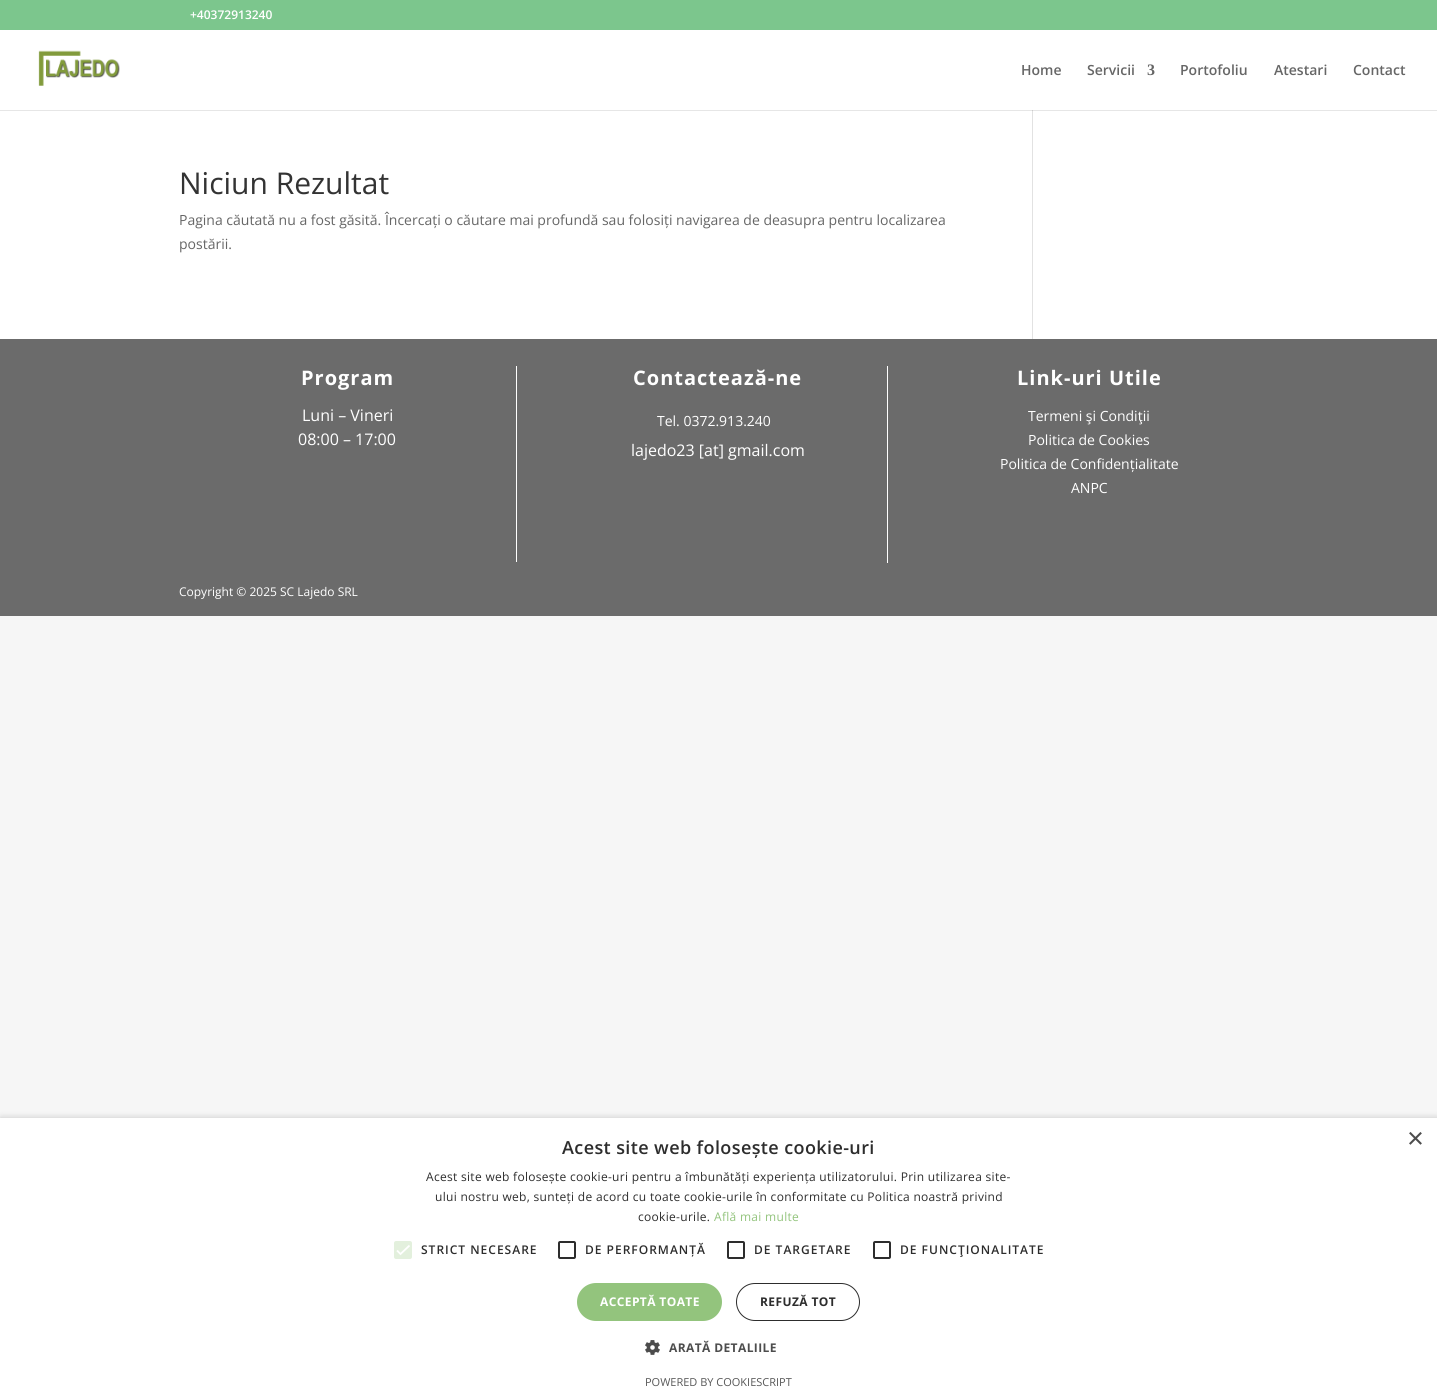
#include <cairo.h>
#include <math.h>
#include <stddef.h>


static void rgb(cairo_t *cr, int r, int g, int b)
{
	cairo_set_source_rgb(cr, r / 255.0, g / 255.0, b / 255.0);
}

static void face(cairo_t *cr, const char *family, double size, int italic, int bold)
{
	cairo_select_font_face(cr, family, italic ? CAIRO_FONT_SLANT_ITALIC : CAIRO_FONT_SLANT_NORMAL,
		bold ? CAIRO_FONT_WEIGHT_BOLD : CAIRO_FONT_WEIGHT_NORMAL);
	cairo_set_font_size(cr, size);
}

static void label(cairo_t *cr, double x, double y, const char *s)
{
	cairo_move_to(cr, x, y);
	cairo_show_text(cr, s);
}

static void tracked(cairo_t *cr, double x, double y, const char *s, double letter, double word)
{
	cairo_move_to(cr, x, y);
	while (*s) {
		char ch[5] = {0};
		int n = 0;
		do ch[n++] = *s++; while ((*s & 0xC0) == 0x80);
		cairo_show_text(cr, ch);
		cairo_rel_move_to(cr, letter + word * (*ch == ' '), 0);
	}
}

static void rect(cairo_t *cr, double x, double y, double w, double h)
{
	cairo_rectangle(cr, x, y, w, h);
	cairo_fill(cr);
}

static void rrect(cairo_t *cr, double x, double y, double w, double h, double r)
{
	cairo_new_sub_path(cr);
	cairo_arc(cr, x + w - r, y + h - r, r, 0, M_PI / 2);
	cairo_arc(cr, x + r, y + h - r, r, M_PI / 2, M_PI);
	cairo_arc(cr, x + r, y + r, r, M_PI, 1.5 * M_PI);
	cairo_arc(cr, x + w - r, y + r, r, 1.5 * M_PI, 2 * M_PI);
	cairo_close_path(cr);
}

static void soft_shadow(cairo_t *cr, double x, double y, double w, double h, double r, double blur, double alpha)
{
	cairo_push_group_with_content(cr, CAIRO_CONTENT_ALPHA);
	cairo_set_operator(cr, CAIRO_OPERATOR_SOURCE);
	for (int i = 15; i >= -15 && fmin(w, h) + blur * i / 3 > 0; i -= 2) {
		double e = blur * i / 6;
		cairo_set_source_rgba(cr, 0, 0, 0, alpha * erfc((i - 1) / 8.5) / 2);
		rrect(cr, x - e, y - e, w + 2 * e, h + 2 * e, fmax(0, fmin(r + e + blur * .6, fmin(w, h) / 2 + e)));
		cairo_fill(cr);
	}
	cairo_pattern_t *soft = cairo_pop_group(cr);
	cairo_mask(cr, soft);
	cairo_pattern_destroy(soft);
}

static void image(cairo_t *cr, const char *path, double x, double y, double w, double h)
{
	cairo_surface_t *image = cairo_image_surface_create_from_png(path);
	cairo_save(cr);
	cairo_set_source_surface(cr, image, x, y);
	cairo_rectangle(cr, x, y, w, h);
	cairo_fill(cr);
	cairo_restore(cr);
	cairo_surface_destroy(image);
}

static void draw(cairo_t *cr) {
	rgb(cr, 246, 246, 246);
	cairo_paint(cr);
	rgb(cr, 124, 198, 141);
	rect(cr, 0, 0, 1437, 30);
	face(cr, "Open Sans SemiBold", 12, 0, 0);
	rgb(cr, 255, 255, 255);
	label(cr, 190, 19, "+40372913240");
	rect(cr, 0, 30, 1437, 80);
	image(cr, "image0.png", 38, 50, 82, 36);
	face(cr, "Open Sans SemiBold", 14, 0, 0);
	rgb(cr, 102, 102, 102);
	label(cr, 1021, 75, "Home");
	label(cr, 1087, 75, "Servicii");
	face(cr, "Liberation Serif", 16, 0, 1);
	label(cr, 1147, 75, "3");
	face(cr, "Open Sans SemiBold", 14, 0, 0);
	label(cr, 1180, 75, "Portofoliu");
	label(cr, 1274, 75, "Atestari");
	label(cr, 1353, 75, "Contact");
	rgb(cr, 255, 255, 255);
	rect(cr, 0, 111, 1437, 228);
	rgb(cr, 230, 230, 230);
	rect(cr, 0, 110, 1437, 1);
	face(cr, "Open Sans", 30, 0, 0);
	rgb(cr, 51, 51, 51);
	label(cr, 179, 194, "Niciun Rezultat");
	face(cr, "Open Sans", 14, 0, 0);
	rgb(cr, 102, 102, 102);
	label(cr, 179, 225, "Pagina căutată nu a fost găsită. Încercați o căutare mai profundă sau folosiți navigarea de deasupra pentru localizarea");
	label(cr, 179, 249, "postării.");
	rgb(cr, 226, 226, 226);
	rect(cr, 1032, 110, 1, 229);
	rgb(cr, 203, 203, 203);
	rect(cr, 1032, 110, 1, 1);
	rgb(cr, 107, 107, 107);
	rect(cr, 0, 339, 1437, 277);
	rgb(cr, 255, 255, 255);
	rect(cr, 516, 366, 1, 196);
	face(cr, "Open Sans", 20, 0, 1);
	tracked(cr, 301, 385, "Program", 1, 0);
	face(cr, "Open Sans", 16, 0, 0);
	label(cr, 302, 421, "Luni – Vineri");
	label(cr, 298, 445, "08:00 – 17:00");
	rect(cr, 887, 366, 1, 197);
	face(cr, "Open Sans", 20, 0, 1);
	tracked(cr, 633, 385, "Contactează-ne", 1, 0);
	face(cr, "Open Sans", 14, 0, 0);
	label(cr, 657, 426, "Tel. 0372.913.240");
	face(cr, "Open Sans", 16, 0, 0);
	label(cr, 631, 456, "lajedo23 [at] gmail.com");
	face(cr, "Open Sans", 20, 0, 1);
	tracked(cr, 1017, 385, "Link-uri Utile", 1, 0);
	face(cr, "Open Sans", 14, 0, 0);
	label(cr, 1028, 421, "Termeni şi Condiţii");
	label(cr, 1028, 445, "Politica de Cookies");
	label(cr, 1000, 469, "Politica de Confidențialitate");
	label(cr, 1071, 493, "ANPC");
	face(cr, "Open Sans", 12, 0, 0);
	label(cr, 179, 596, "Copyright © 2025 SC Lajedo SRL");
	rgb(cr, 0, 0, 0);
	soft_shadow(cr, 1, 1120, 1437, 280, 0, 4, 0.35);
	rgb(cr, 255, 255, 255);
	rect(cr, 0, 1118, 1437, 280);
	face(cr, "Liberation Sans", 29, 0, 0);
	rgb(cr, 77, 77, 77);
	label(cr, 1407, 1148, "×");
	face(cr, "Open Sans SemiBold", 18, 0, 0);
	rgb(cr, 45, 45, 45);
	tracked(cr, 562, 1154, "Acest site web folosește cookie-uri", 0.4, 0);
	face(cr, "Open Sans", 12, 0, 0);
	tracked(cr, 426, 1181, "Acest site web folosește cookie-uri pentru a îmbunătăți experiența utilizatorului. Prin utilizarea site-", 0.3, 0);
	tracked(cr, 435, 1201, "ului nostru web, sunteți de acord cu toate cookie-urile în conformitate cu Politica noastră privind", 0.3, 0);
	tracked(cr, 638, 1221, "cookie-urile.", 0.3, 0);
	rgb(cr, 147, 196, 125);
	tracked(cr, 714, 1221, "Află mai multe", 0.3, 0);
	rgb(cr, 227, 240, 221);
	rrect(cr, 394, 1241, 18, 18, 2);
	cairo_fill(cr);
	cairo_new_path(cr);
	cairo_move_to(cr, 397, 1250.5);
	cairo_line_to(cr, 400.5, 1254);
	cairo_line_to(cr, 409.5, 1245.5);
	rgb(cr, 255, 255, 255);
	cairo_set_line_width(cr, 1.8);
	cairo_stroke(cr);
	face(cr, "Open Sans SemiBold", 12, 0, 0);
	rgb(cr, 45, 45, 45);
	tracked(cr, 421, 1254, "STRICT NECESARE", 1, 0);
	rrect(cr, 559, 1242, 16, 16, 1);
	cairo_set_line_width(cr, 2);
	cairo_stroke(cr);
	tracked(cr, 585, 1254, "DE PERFORMANȚĂ", 1, 0);
	rrect(cr, 728, 1242, 16, 16, 1);
	cairo_stroke(cr);
	tracked(cr, 754, 1254, "DE TARGETARE", 1, 0);
	rrect(cr, 874, 1242, 16, 16, 1);
	cairo_stroke(cr);
	tracked(cr, 900, 1254, "DE FUNCŢIONALITATE", 1, 0);
	rgb(cr, 147, 196, 125);
	rrect(cr, 577, 1283, 145, 38, 19);
	cairo_fill(cr);
	face(cr, "Open Sans", 12, 0, 1);
	rgb(cr, 255, 255, 255);
	tracked(cr, 600, 1306, "ACCEPTĂ TOATE", 0.4, 0);
	rrect(cr, 736.5, 1283.5, 123, 37, 18.5);
	rgb(cr, 45, 45, 45);
	cairo_set_line_width(cr, 1);
	cairo_stroke(cr);
	tracked(cr, 760, 1306, "REFUZĂ TOT", 0.4, 0);
	image(cr, "image1.png", 645, 1340, 15, 15);
	rgb(cr, 77, 77, 77);
	tracked(cr, 669, 1352, "ARATĂ DETALIILE", 0.4, 0);
	face(cr, "Open Sans", 11, 0, 0);
	rgb(cr, 87, 87, 87);
	label(cr, 645, 1386, "POWERED BY COOKIESCRIPT");
}

int main(void) {
	cairo_surface_t *surface = cairo_image_surface_create(CAIRO_FORMAT_RGB24, 1437, 1398);
	cairo_t *cr = cairo_create(surface);
	cairo_font_options_t *options = cairo_font_options_create();
	cairo_font_options_set_hint_metrics(options, CAIRO_HINT_METRICS_OFF);
	cairo_font_options_set_hint_style(options, CAIRO_HINT_STYLE_NONE);
	cairo_set_font_options(cr, options);
	cairo_set_miter_limit(cr, 4);
	draw(cr);
	cairo_surface_write_to_png(surface, "render.png");
	cairo_font_options_destroy(options);
	cairo_destroy(cr);
	cairo_surface_destroy(surface);
	return 0;
}
